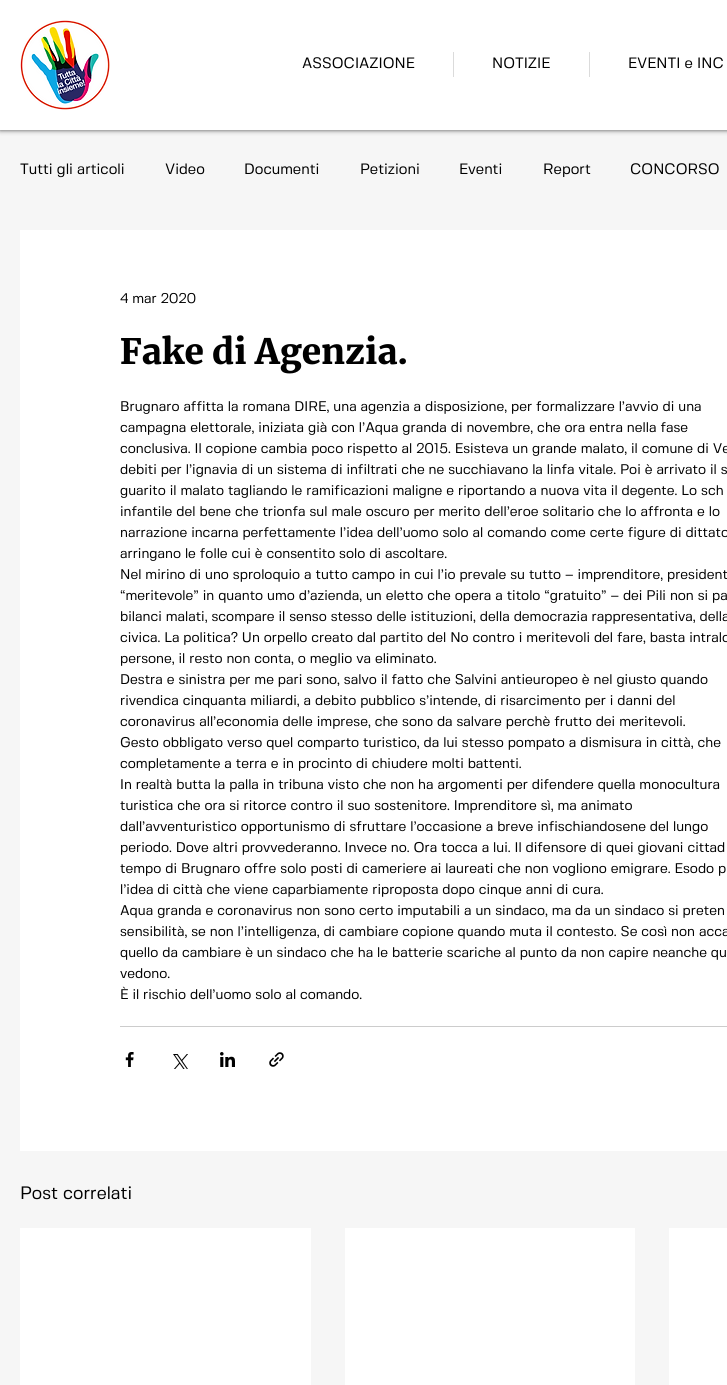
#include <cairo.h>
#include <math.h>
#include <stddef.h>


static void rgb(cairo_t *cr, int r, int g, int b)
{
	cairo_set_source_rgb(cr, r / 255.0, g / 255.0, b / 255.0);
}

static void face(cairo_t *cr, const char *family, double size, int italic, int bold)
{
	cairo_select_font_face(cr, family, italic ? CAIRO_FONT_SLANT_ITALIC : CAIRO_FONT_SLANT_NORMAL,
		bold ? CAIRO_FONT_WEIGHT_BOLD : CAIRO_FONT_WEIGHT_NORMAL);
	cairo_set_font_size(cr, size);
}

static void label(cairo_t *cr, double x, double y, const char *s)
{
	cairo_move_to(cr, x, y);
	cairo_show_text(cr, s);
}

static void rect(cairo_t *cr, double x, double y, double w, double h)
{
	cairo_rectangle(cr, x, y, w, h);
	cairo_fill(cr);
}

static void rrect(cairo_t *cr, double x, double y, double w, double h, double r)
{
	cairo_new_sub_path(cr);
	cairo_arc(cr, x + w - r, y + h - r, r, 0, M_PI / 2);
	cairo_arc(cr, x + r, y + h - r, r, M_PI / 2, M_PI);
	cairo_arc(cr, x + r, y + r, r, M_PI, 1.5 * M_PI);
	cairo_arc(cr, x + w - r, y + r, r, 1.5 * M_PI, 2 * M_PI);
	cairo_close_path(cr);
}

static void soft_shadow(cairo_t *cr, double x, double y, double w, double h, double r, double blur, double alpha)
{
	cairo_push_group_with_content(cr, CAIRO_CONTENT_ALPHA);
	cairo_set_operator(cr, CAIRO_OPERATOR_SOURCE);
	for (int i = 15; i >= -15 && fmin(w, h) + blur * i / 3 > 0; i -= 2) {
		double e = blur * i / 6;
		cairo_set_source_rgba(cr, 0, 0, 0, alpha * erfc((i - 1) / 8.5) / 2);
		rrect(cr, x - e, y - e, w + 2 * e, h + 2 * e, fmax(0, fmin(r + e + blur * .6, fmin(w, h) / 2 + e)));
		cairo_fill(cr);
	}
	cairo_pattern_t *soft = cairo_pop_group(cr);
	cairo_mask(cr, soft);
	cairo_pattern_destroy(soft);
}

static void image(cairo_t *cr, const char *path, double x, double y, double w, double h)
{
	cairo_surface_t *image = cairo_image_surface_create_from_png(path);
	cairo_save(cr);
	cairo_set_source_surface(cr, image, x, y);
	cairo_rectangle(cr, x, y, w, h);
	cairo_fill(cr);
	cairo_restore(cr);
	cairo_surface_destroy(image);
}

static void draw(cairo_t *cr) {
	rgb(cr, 246, 246, 246);
	cairo_paint(cr);
	rgb(cr, 0, 0, 0);
	soft_shadow(cr, 0, 0, 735, 130, 0, 2.5, 0.7);
	rgb(cr, 255, 255, 255);
	rect(cr, 0, 0, 727, 130);
	image(cr, "image0.png", 20, 20, 90, 90);
	face(cr, "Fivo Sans", 15, 0, 0);
	rgb(cr, 0, 0, 0);
	label(cr, 302, 68, "ASSOCIAZIONE");
	rgb(cr, 219, 219, 219);
	rect(cr, 453, 52, 1, 25);
	rgb(cr, 0, 0, 0);
	label(cr, 492, 68, "NOTIZIE");
	rgb(cr, 219, 219, 219);
	rect(cr, 589, 52, 1, 25);
	rgb(cr, 0, 0, 0);
	label(cr, 628, 68, "EVENTI e INC");
	label(cr, 20, 174, "Tutti gli articoli");
	label(cr, 165, 174, "Video");
	label(cr, 244, 174, "Documenti");
	label(cr, 360, 174, "Petizioni");
	label(cr, 459, 174, "Eventi");
	label(cr, 543, 174, "Report");
	label(cr, 630, 174, "CONCORSO");
	rgb(cr, 255, 255, 255);
	rect(cr, 20, 230, 707, 921);
	face(cr, "Fivo Sans", 14, 0, 0);
	rgb(cr, 0, 0, 0);
	label(cr, 120, 303, "4 mar 2020");
	face(cr, "Merriweather Black", 35, 0, 0);
	label(cr, 120, 364, "Fake di Agenzia.");
	face(cr, "Fivo Sans", 14, 0, 0);
	label(cr, 120, 411, "Brugnaro affitta la romana DIRE, una agenzia a disposizione, per formalizzare l’avvio di una");
	label(cr, 120, 432, "campagna elettorale, iniziata già con l’Aqua granda di novembre, che ora entra nella fase");
	label(cr, 120, 453, "conclusiva. Il copione cambia poco rispetto al 2015. Esisteva un grande malato, il comune di Ve");
	label(cr, 120, 474, "debiti per l’ignavia di un sistema di infiltrati che ne succhiavano la linfa vitale. Poi è arrivato il s");
	label(cr, 120, 495, "guarito il malato tagliando le ramificazioni maligne e riportando a nuova vita il degente. Lo sch");
	label(cr, 120, 516, "infantile del bene che trionfa sul male oscuro per merito dell’eroe solitario che lo affronta e lo");
	label(cr, 120, 537, "narrazione incarna perfettamente l’idea dell’uomo solo al comando come certe figure di dittato");
	label(cr, 120, 558, "arringano le folle cui è consentito solo di ascoltare.");
	label(cr, 120, 579, "Nel mirino di uno sproloquio a tutto campo in cui l’io prevale su tutto – imprenditore, president");
	label(cr, 120, 600, "“meritevole” in quanto umo d’azienda, un eletto che opera a titolo “gratuito” – dei Pili non si pa");
	label(cr, 120, 621, "bilanci malati, scompare il senso stesso delle istituzioni, della democrazia rappresentativa, della");
	label(cr, 120, 642, "civica. La politica? Un orpello creato dal partito del No contro i meritevoli del fare, basta intralc");
	label(cr, 120, 663, "persone, il resto non conta, o meglio va eliminato.");
	label(cr, 120, 684, "Destra e sinistra per me pari sono, salvo il fatto che Salvini antieuropeo è nel giusto quando");
	label(cr, 120, 705, "rivendica cinquanta miliardi, a debito pubblico s’intende, di risarcimento per i danni del");
	label(cr, 120, 726, "coronavirus all’economia delle imprese, che sono da salvare perchè frutto dei meritevoli.");
	label(cr, 120, 747, "Gesto obbligato verso quel comparto turistico, da lui stesso pompato a dismisura in città, che");
	label(cr, 120, 768, "completamente a terra e in procinto di chiudere molti battenti.");
	label(cr, 120, 789, "In realtà butta la palla in tribuna visto che non ha argomenti per difendere quella monocultura");
	label(cr, 120, 810, "turistica che ora si ritorce contro il suo sostenitore. Imprenditore sì, ma animato");
	label(cr, 120, 831, "dall’avventuristico opportunismo di sfruttare l’occasione a breve infischiandosene del lungo");
	label(cr, 120, 852, "periodo. Dove altri provvederanno. Invece no. Ora tocca a lui. Il difensore di quei giovani cittad");
	label(cr, 120, 873, "tempo di Brugnaro offre solo posti di cameriere ai laureati che non vogliono emigrare. Esodo p");
	label(cr, 120, 894, "l’idea di città che viene caparbiamente riproposta dopo cinque anni di cura.");
	label(cr, 120, 915, "Aqua granda e coronavirus non sono certo imputabili a un sindaco, ma da un sindaco si preten");
	label(cr, 120, 936, "sensibilità, se non l’intelligenza, di cambiare copione quando muta il contesto. Se così non acca");
	label(cr, 120, 957, "quello da cambiare è un sindaco che ha le batterie scariche al punto da non capire neanche qu");
	label(cr, 120, 978, "vedono.");
	label(cr, 120, 999, "È il rischio dell’uomo solo al comando.");
	rgb(cr, 204, 204, 204);
	rect(cr, 120, 1026, 607, 1);
	image(cr, "image1.png", 125, 1052, 9, 15);
	image(cr, "image2.png", 173, 1054, 15, 15);
	image(cr, "image3.png", 220, 1052, 15, 15);
	image(cr, "image4.png", 269, 1052, 15, 15);
	face(cr, "Fivo Sans", 18, 0, 0);
	rgb(cr, 0, 0, 0);
	label(cr, 20, 1199, "Post correlati");
	rgb(cr, 255, 255, 255);
	rect(cr, 20, 1228, 291, 157);
	rect(cr, 345, 1228, 290, 157);
	rect(cr, 669, 1228, 58, 157);
}

int main(void) {
	cairo_surface_t *surface = cairo_image_surface_create(CAIRO_FORMAT_RGB24, 727, 1385);
	cairo_t *cr = cairo_create(surface);
	cairo_font_options_t *options = cairo_font_options_create();
	cairo_font_options_set_hint_metrics(options, CAIRO_HINT_METRICS_OFF);
	cairo_font_options_set_hint_style(options, CAIRO_HINT_STYLE_NONE);
	cairo_set_font_options(cr, options);
	cairo_set_miter_limit(cr, 4);
	draw(cr);
	cairo_surface_write_to_png(surface, "render.png");
	cairo_font_options_destroy(options);
	cairo_destroy(cr);
	cairo_surface_destroy(surface);
	return 0;
}
